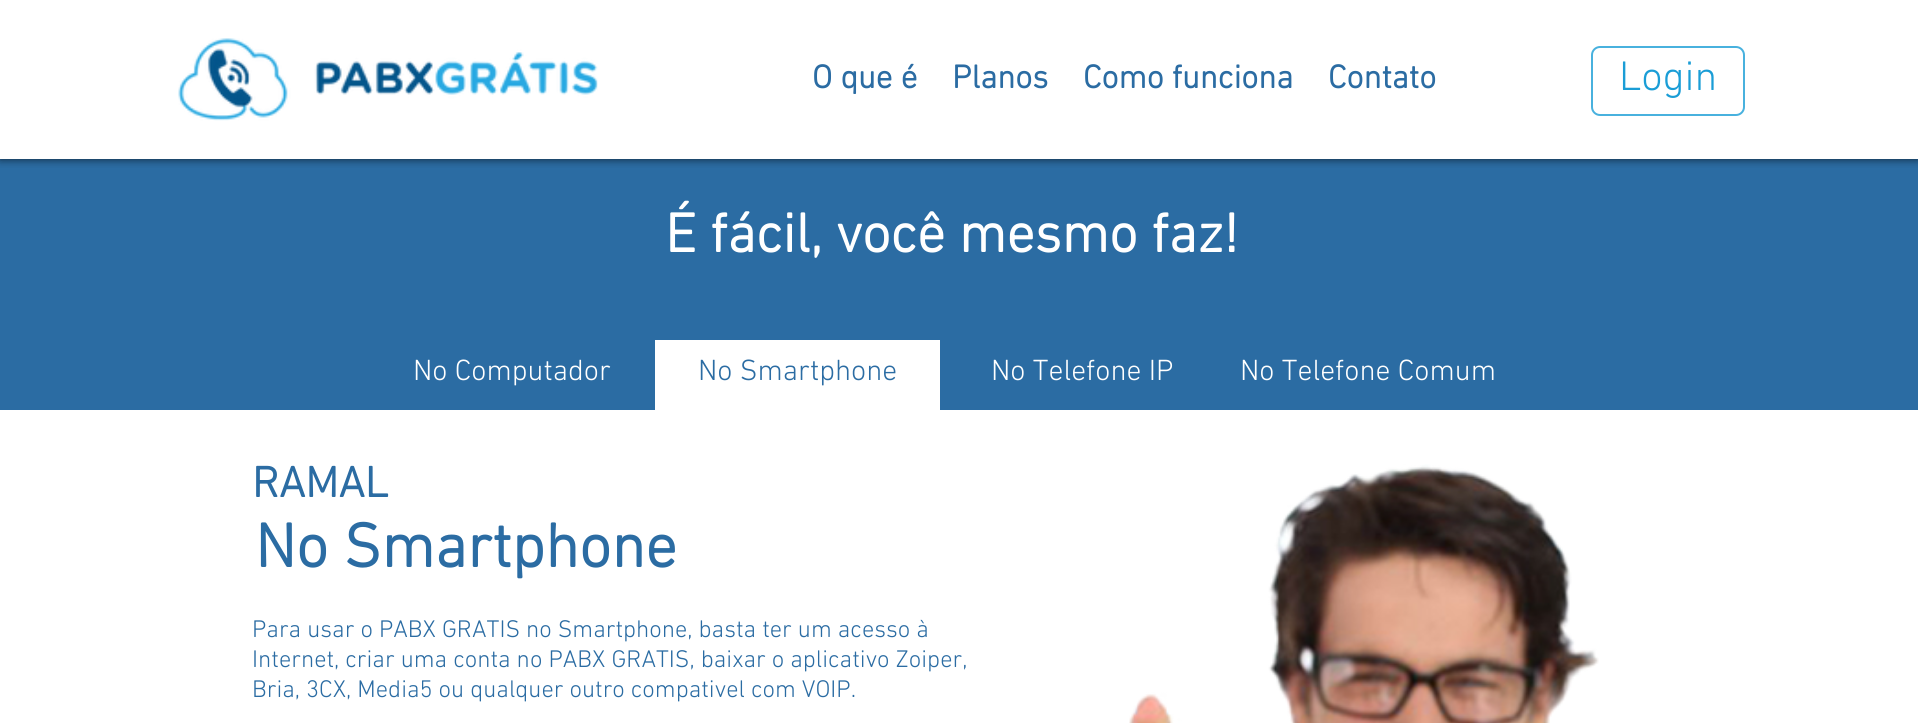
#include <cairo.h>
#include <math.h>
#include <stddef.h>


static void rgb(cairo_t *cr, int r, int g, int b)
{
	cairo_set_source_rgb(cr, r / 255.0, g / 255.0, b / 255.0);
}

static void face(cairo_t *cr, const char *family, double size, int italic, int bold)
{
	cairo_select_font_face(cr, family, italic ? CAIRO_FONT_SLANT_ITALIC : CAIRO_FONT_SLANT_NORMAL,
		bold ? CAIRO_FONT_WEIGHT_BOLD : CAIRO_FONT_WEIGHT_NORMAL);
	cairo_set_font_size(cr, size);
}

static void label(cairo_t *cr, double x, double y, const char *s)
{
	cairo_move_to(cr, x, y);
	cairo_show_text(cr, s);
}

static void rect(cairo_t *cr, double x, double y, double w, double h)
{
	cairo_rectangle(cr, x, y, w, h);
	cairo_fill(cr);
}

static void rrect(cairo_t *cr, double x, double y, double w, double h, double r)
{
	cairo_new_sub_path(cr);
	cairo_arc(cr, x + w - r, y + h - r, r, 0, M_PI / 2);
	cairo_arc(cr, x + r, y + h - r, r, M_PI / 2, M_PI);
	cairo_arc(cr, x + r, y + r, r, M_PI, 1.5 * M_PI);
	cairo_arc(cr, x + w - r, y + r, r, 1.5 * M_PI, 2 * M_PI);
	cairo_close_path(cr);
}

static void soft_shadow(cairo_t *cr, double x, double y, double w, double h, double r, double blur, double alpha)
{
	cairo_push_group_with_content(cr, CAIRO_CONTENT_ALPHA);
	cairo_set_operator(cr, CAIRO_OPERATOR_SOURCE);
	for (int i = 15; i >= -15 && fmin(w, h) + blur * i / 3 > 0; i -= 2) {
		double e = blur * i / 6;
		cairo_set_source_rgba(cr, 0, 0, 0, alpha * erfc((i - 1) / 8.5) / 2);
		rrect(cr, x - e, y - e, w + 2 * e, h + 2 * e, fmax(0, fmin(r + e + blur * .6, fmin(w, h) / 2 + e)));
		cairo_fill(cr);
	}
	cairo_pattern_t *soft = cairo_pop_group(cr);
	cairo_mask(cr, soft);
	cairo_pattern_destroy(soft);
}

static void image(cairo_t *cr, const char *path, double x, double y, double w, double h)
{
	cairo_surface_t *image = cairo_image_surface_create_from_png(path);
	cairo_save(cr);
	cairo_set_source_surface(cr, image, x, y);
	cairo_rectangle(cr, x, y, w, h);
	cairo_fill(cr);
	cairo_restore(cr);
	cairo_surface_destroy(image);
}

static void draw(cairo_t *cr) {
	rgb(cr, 255, 255, 255);
	cairo_paint(cr);
	rgb(cr, 43, 108, 163);
	rect(cr, 0, 159, 1918, 251);
	cairo_save(cr);
	cairo_rectangle(cr, 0, 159, 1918, 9);
	cairo_clip(cr);
	rgb(cr, 0, 0, 0);
	soft_shadow(cr, 0, 0, 1918, 159, 0, 4.5, 0.7);
	cairo_restore(cr);
	image(cr, "image0.png", 178, 38, 420, 83);
	face(cr, "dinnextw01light", 33.25, 0, 1);
	label(cr, 812, 88, "O que é");
	label(cr, 952, 88, "Planos");
	label(cr, 1083, 88, "Como funciona");
	label(cr, 1328, 88, "Contato");
	rrect(cr, 1592, 47, 152, 68, 8);
	rgb(cr, 72, 177, 222);
	cairo_stroke(cr);
	face(cr, "dinnextw01light Light", 42, 0, 0);
	rgb(cr, 26, 157, 214);
	label(cr, 1619, 90, "Login");
	face(cr, "dinnextw01light", 56, 0, 1);
	rgb(cr, 255, 255, 255);
	label(cr, 665, 252, "É fácil, você mesmo faz!");
	face(cr, "dinnextw01light Light", 29.75, 0, 0);
	label(cr, 413, 380, "No Computador");
	rect(cr, 655, 340, 285, 70);
	rgb(cr, 43, 108, 163);
	label(cr, 698, 380, "No Smartphone");
	rgb(cr, 255, 255, 255);
	label(cr, 991, 380, "No Telefone IP");
	label(cr, 1240, 380, "No Telefone Comum");
	face(cr, "dinnextw01light", 44, 0, 1);
	rgb(cr, 43, 108, 163);
	label(cr, 252, 497, "RAMAL");
	image(cr, "image1.png", 1129, 464, 470, 259);
	face(cr, "dinnextw01light", 63, 0, 1);
	label(cr, 255, 567, "No Smartphone");
	face(cr, "dinnextw01light Light", 24.5, 0, 0);
	label(cr, 252, 637, "Para usar o PABX GRATIS no Smartphone, basta ter um acesso à");
	label(cr, 252, 667, "Internet, criar uma conta no PABX GRATIS, baixar o aplicativo Zoiper,");
	label(cr, 252, 697, "Bria, 3CX, Media5 ou qualquer outro compativel com VOIP.");
}

int main(void) {
	cairo_surface_t *surface = cairo_image_surface_create(CAIRO_FORMAT_RGB24, 1918, 723);
	cairo_t *cr = cairo_create(surface);
	cairo_font_options_t *options = cairo_font_options_create();
	cairo_font_options_set_hint_metrics(options, CAIRO_HINT_METRICS_OFF);
	cairo_font_options_set_hint_style(options, CAIRO_HINT_STYLE_NONE);
	cairo_set_font_options(cr, options);
	cairo_set_miter_limit(cr, 4);
	draw(cr);
	cairo_surface_write_to_png(surface, "render.png");
	cairo_font_options_destroy(options);
	cairo_destroy(cr);
	cairo_surface_destroy(surface);
	return 0;
}
